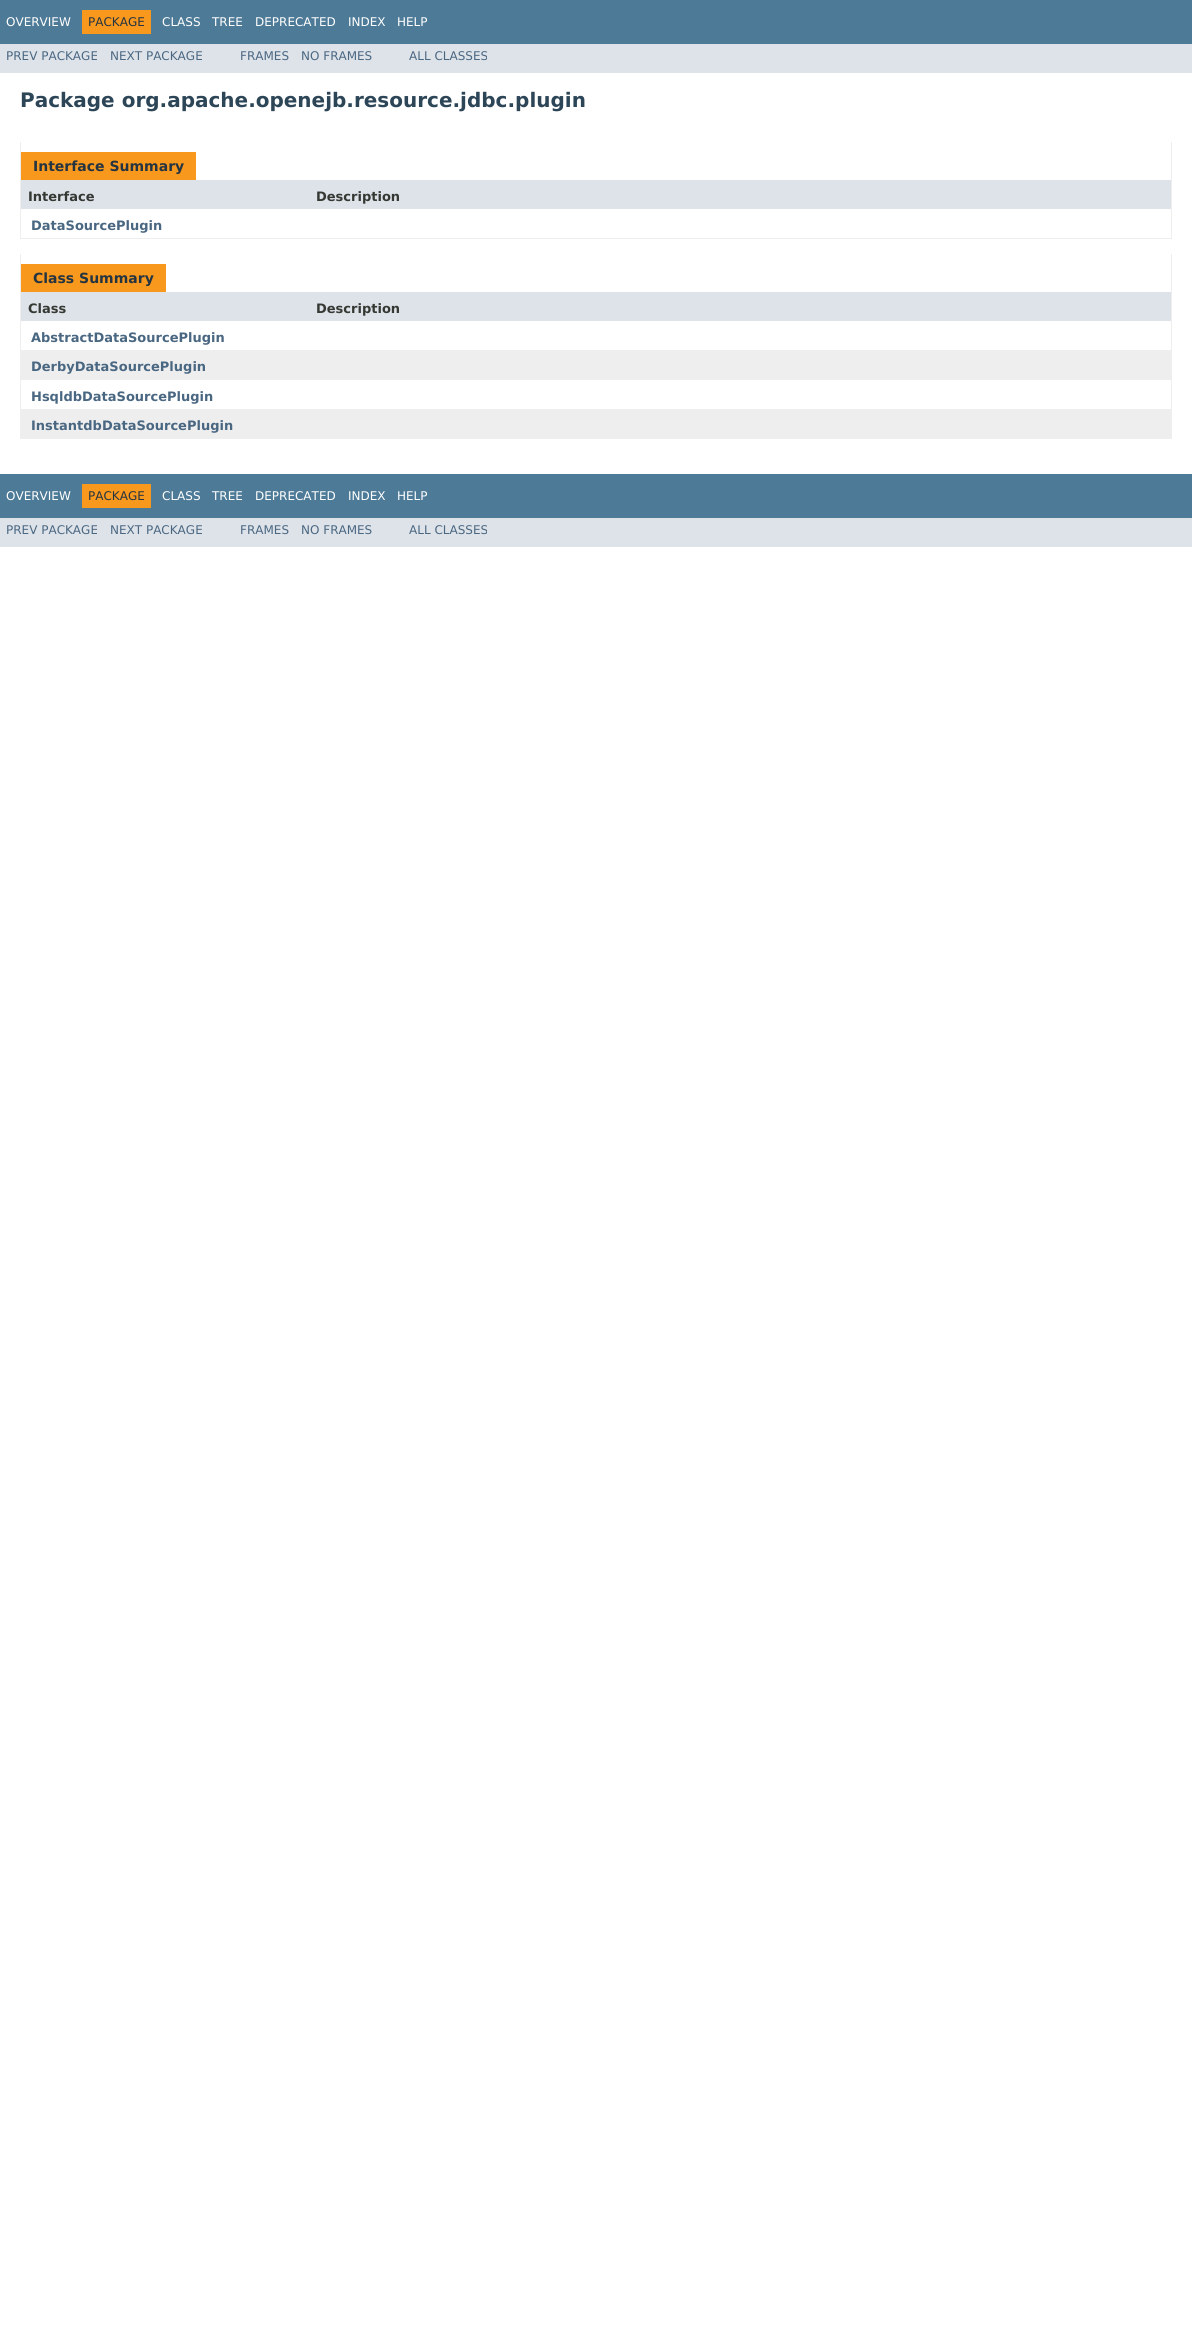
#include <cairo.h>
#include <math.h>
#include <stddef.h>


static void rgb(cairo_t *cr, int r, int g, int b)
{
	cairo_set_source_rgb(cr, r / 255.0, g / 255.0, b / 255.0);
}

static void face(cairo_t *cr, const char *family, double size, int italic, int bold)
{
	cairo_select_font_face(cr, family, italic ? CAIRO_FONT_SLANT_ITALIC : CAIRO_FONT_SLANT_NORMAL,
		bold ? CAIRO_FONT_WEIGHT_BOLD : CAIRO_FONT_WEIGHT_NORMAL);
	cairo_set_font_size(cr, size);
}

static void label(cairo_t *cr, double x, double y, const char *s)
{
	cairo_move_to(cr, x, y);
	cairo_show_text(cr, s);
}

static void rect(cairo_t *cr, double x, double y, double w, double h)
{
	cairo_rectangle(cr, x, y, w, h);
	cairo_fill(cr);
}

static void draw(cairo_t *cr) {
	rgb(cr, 255, 255, 255);
	cairo_paint(cr);
	rgb(cr, 77, 122, 151);
	rect(cr, 0, 0, 1192, 44);
	face(cr, "DejaVu Sans", 12, 0, 0);
	rgb(cr, 255, 255, 255);
	label(cr, 6, 26, "OVERVIEW");
	rgb(cr, 248, 152, 29);
	rect(cr, 82, 10, 69, 24);
	rgb(cr, 37, 52, 65);
	label(cr, 88, 26, "PACKAGE");
	rgb(cr, 255, 255, 255);
	label(cr, 162, 26, "CLASS");
	label(cr, 212, 26, "TREE");
	label(cr, 255, 26, "DEPRECATED");
	label(cr, 348, 26, "INDEX");
	label(cr, 397, 26, "HELP");
	rgb(cr, 222, 227, 233);
	rect(cr, 0, 44, 1192, 29);
	rgb(cr, 74, 103, 130);
	label(cr, 6, 60, "PREV PACKAGE");
	label(cr, 110, 60, "NEXT PACKAGE");
	label(cr, 240, 60, "FRAMES");
	label(cr, 301, 60, "NO FRAMES");
	label(cr, 409, 60, "ALL CLASSES");
	face(cr, "DejaVu Sans", 20, 0, 1);
	rgb(cr, 44, 69, 87);
	label(cr, 20, 107, "Package org.apache.openejb.resource.jdbc.plugin");
	rgb(cr, 238, 238, 238);
	rect(cr, 1171, 142, 1, 97);
	rect(cr, 20, 238, 1152, 1);
	rect(cr, 20, 142, 1, 97);
	rgb(cr, 248, 152, 29);
	rect(cr, 21, 152, 175, 28);
	face(cr, "DejaVu Sans", 14, 0, 1);
	rgb(cr, 37, 52, 65);
	label(cr, 33, 171, "Interface Summary");
	rgb(cr, 222, 227, 233);
	rect(cr, 21, 180, 1150, 29);
	face(cr, "DejaVu Sans", 13, 0, 1);
	rgb(cr, 53, 56, 51);
	label(cr, 28, 201, "Interface");
	label(cr, 316, 201, "Description");
	rgb(cr, 74, 103, 130);
	label(cr, 31, 230, "DataSourcePlugin");
	rgb(cr, 238, 238, 238);
	rect(cr, 1171, 254, 1, 185);
	rect(cr, 20, 438, 1152, 1);
	rect(cr, 20, 254, 1, 185);
	rgb(cr, 248, 152, 29);
	rect(cr, 21, 264, 145, 28);
	face(cr, "DejaVu Sans", 14, 0, 1);
	rgb(cr, 37, 52, 65);
	label(cr, 33, 283, "Class Summary");
	rgb(cr, 222, 227, 233);
	rect(cr, 21, 292, 1150, 29);
	face(cr, "DejaVu Sans", 13, 0, 1);
	rgb(cr, 53, 56, 51);
	label(cr, 28, 313, "Class");
	label(cr, 316, 313, "Description");
	rgb(cr, 74, 103, 130);
	label(cr, 31, 342, "AbstractDataSourcePlugin");
	rgb(cr, 238, 238, 239);
	rect(cr, 21, 350, 1150, 30);
	rgb(cr, 74, 103, 130);
	label(cr, 31, 371, "DerbyDataSourcePlugin");
	label(cr, 31, 401, "HsqldbDataSourcePlugin");
	rgb(cr, 238, 238, 239);
	rect(cr, 21, 409, 1150, 29);
	rgb(cr, 74, 103, 130);
	label(cr, 31, 430, "InstantdbDataSourcePlugin");
	rgb(cr, 77, 122, 151);
	rect(cr, 0, 474, 1192, 44);
	face(cr, "DejaVu Sans", 12, 0, 0);
	rgb(cr, 255, 255, 255);
	label(cr, 6, 500, "OVERVIEW");
	rgb(cr, 248, 152, 29);
	rect(cr, 82, 484, 69, 24);
	rgb(cr, 37, 52, 65);
	label(cr, 88, 500, "PACKAGE");
	rgb(cr, 255, 255, 255);
	label(cr, 162, 500, "CLASS");
	label(cr, 212, 500, "TREE");
	label(cr, 255, 500, "DEPRECATED");
	label(cr, 348, 500, "INDEX");
	label(cr, 397, 500, "HELP");
	rgb(cr, 222, 227, 233);
	rect(cr, 0, 518, 1192, 29);
	rgb(cr, 74, 103, 130);
	label(cr, 6, 534, "PREV PACKAGE");
	label(cr, 110, 534, "NEXT PACKAGE");
	label(cr, 240, 534, "FRAMES");
	label(cr, 301, 534, "NO FRAMES");
	label(cr, 409, 534, "ALL CLASSES");
}

int main(void) {
	cairo_surface_t *surface = cairo_image_surface_create(CAIRO_FORMAT_RGB24, 1192, 2352);
	cairo_t *cr = cairo_create(surface);
	cairo_font_options_t *options = cairo_font_options_create();
	cairo_font_options_set_hint_metrics(options, CAIRO_HINT_METRICS_OFF);
	cairo_font_options_set_hint_style(options, CAIRO_HINT_STYLE_NONE);
	cairo_set_font_options(cr, options);
	cairo_set_miter_limit(cr, 4);
	draw(cr);
	cairo_surface_write_to_png(surface, "render.png");
	cairo_font_options_destroy(options);
	cairo_destroy(cr);
	cairo_surface_destroy(surface);
	return 0;
}
